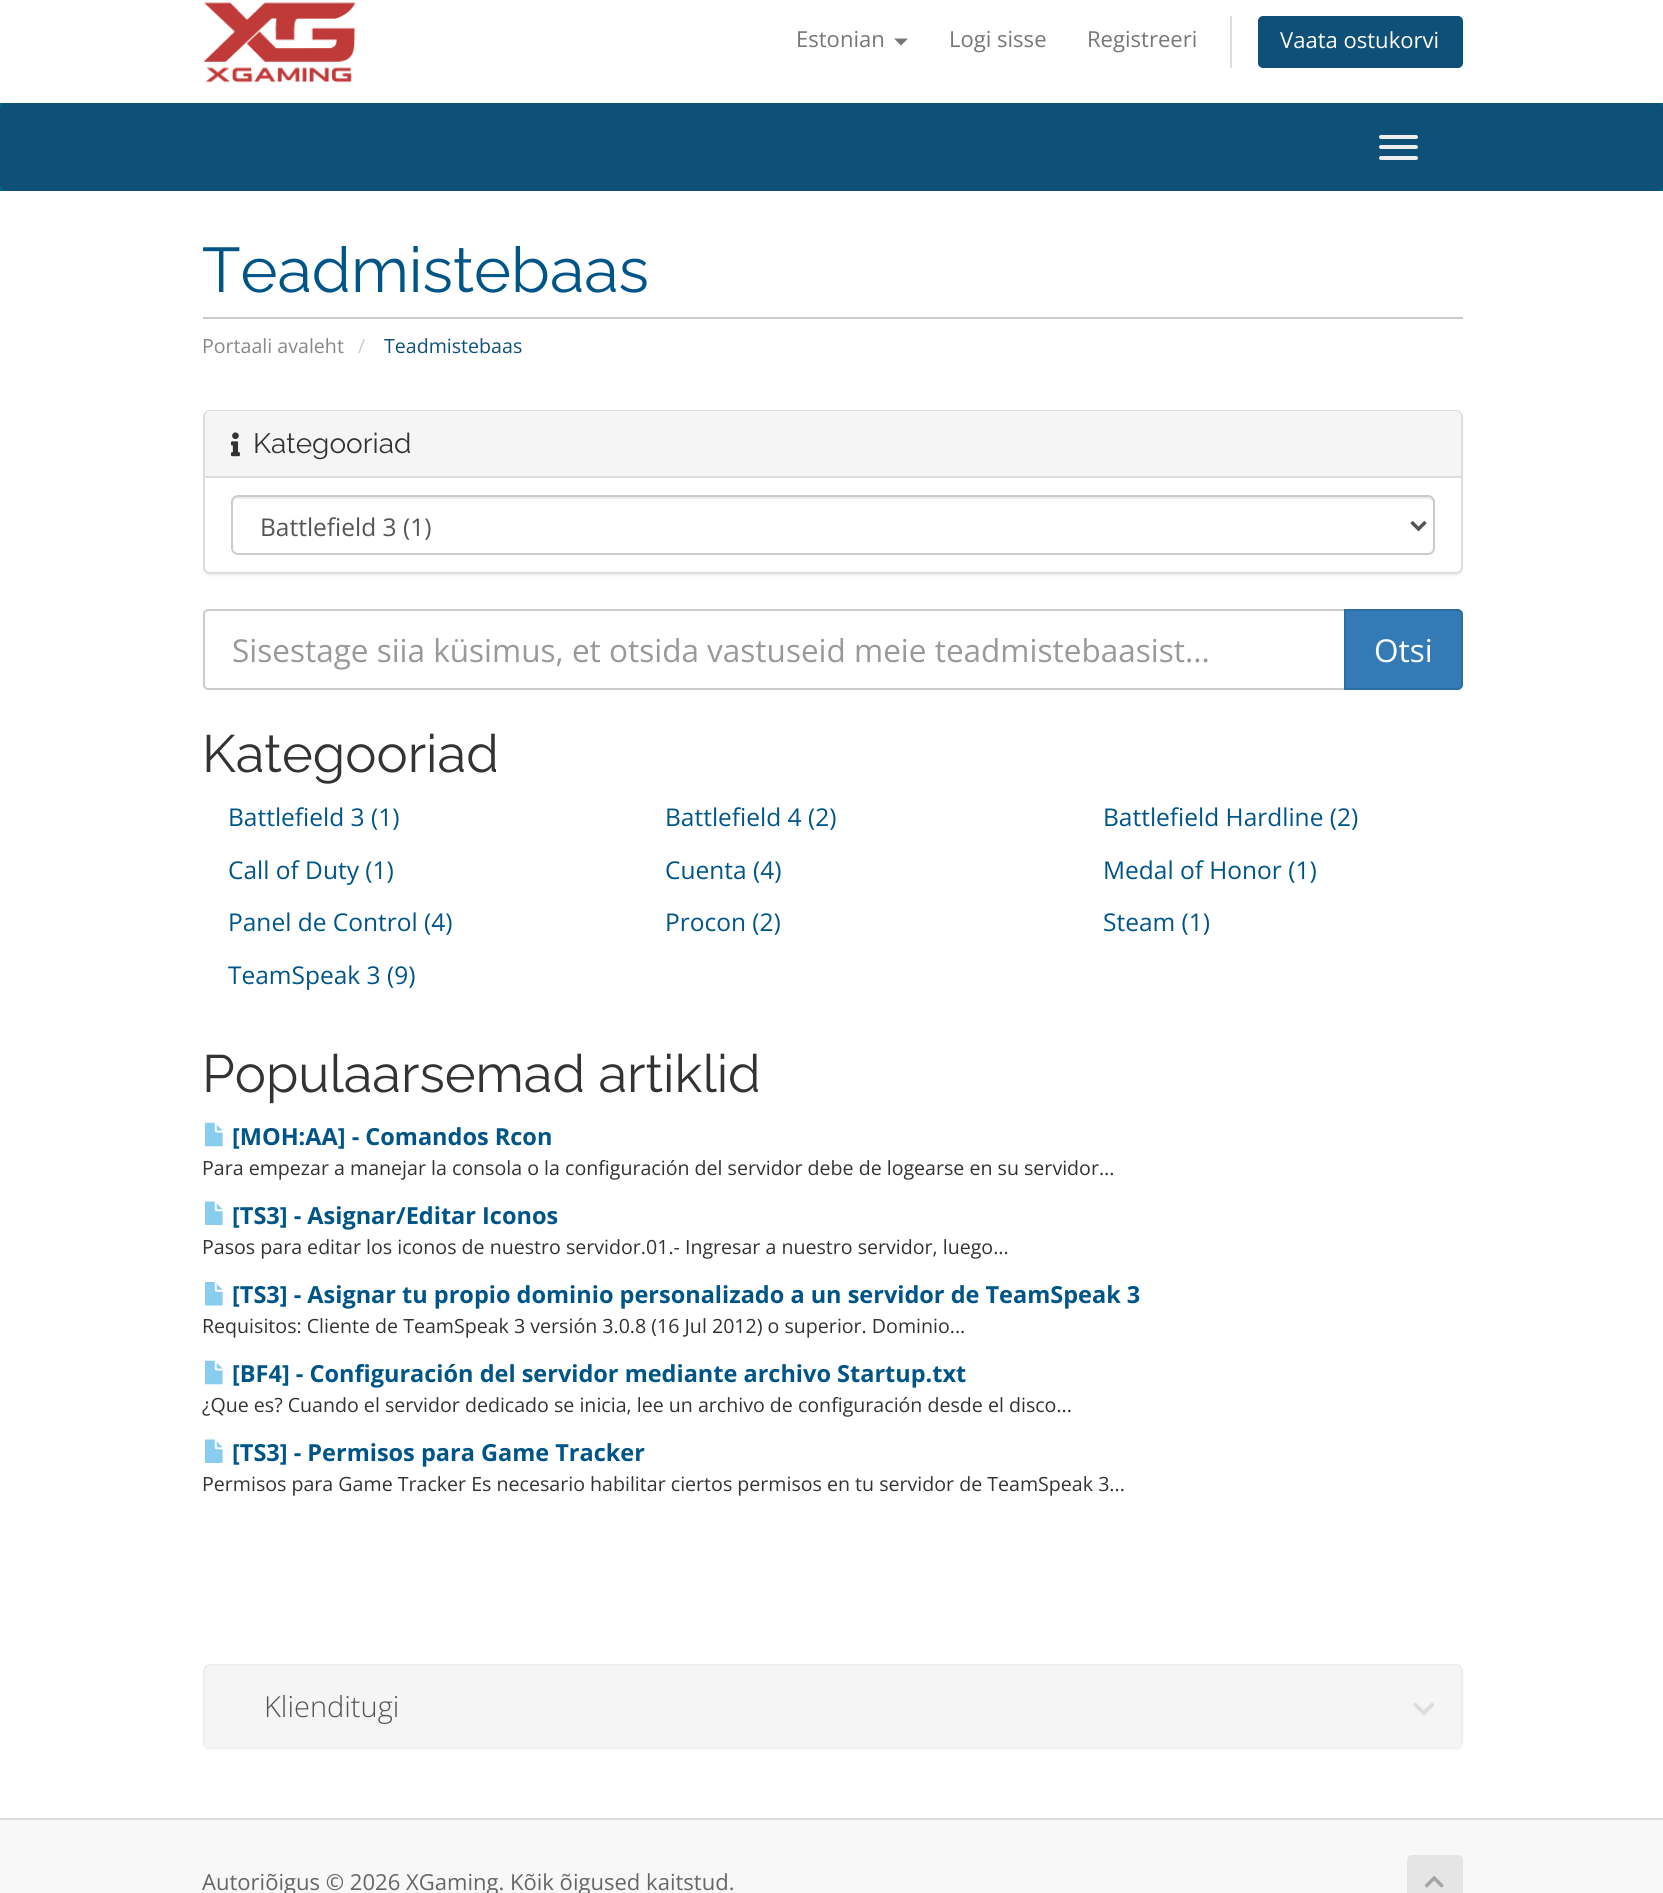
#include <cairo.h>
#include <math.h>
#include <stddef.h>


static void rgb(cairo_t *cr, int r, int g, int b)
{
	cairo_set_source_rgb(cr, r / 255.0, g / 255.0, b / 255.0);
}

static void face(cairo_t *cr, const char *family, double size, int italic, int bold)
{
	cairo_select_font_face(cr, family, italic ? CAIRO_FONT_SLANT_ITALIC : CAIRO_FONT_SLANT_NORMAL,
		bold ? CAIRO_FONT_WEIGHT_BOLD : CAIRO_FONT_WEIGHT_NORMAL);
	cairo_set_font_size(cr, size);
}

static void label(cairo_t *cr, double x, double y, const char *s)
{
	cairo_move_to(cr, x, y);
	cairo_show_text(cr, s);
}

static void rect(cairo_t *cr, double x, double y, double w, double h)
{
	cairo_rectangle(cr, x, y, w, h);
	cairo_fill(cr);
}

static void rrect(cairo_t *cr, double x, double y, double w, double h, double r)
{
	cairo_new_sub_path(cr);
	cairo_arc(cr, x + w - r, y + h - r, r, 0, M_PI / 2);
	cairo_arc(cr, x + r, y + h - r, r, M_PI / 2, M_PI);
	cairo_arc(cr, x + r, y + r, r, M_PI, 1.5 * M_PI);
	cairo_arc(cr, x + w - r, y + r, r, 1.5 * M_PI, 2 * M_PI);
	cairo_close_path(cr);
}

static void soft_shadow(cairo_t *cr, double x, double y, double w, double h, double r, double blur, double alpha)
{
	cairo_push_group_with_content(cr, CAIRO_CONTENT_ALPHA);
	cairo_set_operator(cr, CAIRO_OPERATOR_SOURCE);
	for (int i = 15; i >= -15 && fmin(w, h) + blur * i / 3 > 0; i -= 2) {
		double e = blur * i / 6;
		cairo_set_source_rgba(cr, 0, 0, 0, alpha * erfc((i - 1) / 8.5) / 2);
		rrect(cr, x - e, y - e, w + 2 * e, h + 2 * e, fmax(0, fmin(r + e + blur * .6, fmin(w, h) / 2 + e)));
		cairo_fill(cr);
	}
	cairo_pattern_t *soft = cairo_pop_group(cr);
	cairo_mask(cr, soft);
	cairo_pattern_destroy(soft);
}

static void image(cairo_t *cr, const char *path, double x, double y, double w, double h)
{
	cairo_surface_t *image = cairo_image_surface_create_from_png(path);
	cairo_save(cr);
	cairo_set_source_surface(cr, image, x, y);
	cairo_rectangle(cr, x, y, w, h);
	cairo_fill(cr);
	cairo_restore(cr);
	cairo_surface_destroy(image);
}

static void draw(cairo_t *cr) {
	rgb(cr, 248, 248, 248);
	cairo_paint(cr);
	rgb(cr, 255, 255, 255);
	rect(cr, 0, 0, 1663, 103);
	image(cr, "image0.png", 203, 2, 153, 81);
	face(cr, "Open Sans", 22.05, 0, 0);
	rgb(cr, 119, 119, 119);
	label(cr, 796, 47, "Estonian");
	cairo_new_path(cr);
	cairo_move_to(cr, 894, 38.5);
	cairo_line_to(cr, 908, 38.5);
	cairo_line_to(cr, 901, 45.5);
	cairo_close_path(cr);
	cairo_fill(cr);
	label(cr, 949, 47, "Logi sisse");
	label(cr, 1087, 47, "Registreeri");
	rgb(cr, 221, 221, 221);
	rect(cr, 1230, 16, 2, 52);
	rgb(cr, 14, 80, 119);
	rrect(cr, 1258, 16, 205, 52, 5);
	cairo_fill(cr);
	rgb(cr, 255, 255, 255);
	label(cr, 1280, 48, "Vaata ostukorvi");
	rgb(cr, 0, 102, 135);
	rect(cr, 0, 103, 1663, 88);
	rgb(cr, 14, 80, 119);
	rrect(cr, 0, 103, 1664, 88, 7);
	cairo_fill(cr);
	rgb(cr, 238, 238, 238);
	rrect(cr, 1379, 135, 39, 4, 2);
	cairo_fill(cr);
	rrect(cr, 1379, 145, 39, 4, 2);
	cairo_fill(cr);
	rrect(cr, 1379, 156, 39, 4, 2);
	cairo_fill(cr);
	rgb(cr, 255, 255, 255);
	rect(cr, 0, 191, 1663, 1627);
	rgb(cr, 204, 204, 204);
	rect(cr, 203, 317, 1260, 2);
	face(cr, "Raleway", 63, 0, 0);
	rgb(cr, 0, 85, 136);
	label(cr, 202, 292, "Teadmistebaas");
	face(cr, "Open Sans", 19.6, 0, 0);
	rgb(cr, 136, 136, 136);
	label(cr, 202, 353, "Portaali avaleht");
	rgb(cr, 204, 204, 204);
	label(cr, 358, 353, "/");
	rgb(cr, 14, 80, 119);
	label(cr, 384, 353, "Teadmistebaas");
	rgb(cr, 0, 0, 0);
	soft_shadow(cr, 203, 411, 1260, 165, 7, 1, 0.05);
	rgb(cr, 255, 255, 255);
	rrect(cr, 204, 411, 1258, 162, 6);
	cairo_fill_preserve(cr);
	rgb(cr, 221, 221, 221);
	cairo_stroke(cr);
	rgb(cr, 245, 245, 245);
	cairo_new_path(cr);
	cairo_move_to(cr, 210, 411);
	cairo_line_to(cr, 1456, 411);
	cairo_curve_to(cr, 1459, 411, 1461, 413, 1461, 416);
	cairo_line_to(cr, 1461, 478);
	cairo_line_to(cr, 205, 478);
	cairo_line_to(cr, 205, 416);
	cairo_curve_to(cr, 205, 413, 207, 411, 210, 411);
	cairo_close_path(cr);
	cairo_fill(cr);
	rgb(cr, 221, 221, 221);
	rect(cr, 205, 476, 1256, 2);
	image(cr, "image1.png", 231, 432, 9, 25);
	face(cr, "Raleway", 28, 0, 0);
	rgb(cr, 51, 51, 51);
	label(cr, 253, 453, "Kategooriad");
	rgb(cr, 236, 236, 236);
	cairo_new_path(cr);
	cairo_move_to(cr, 238, 499);
	cairo_line_to(cr, 1428, 499);
	cairo_curve_to(cr, 1431, 499, 1433, 501, 1433, 504);
	cairo_line_to(cr, 1433, 502);
	cairo_curve_to(cr, 1433, 499, 1431, 497, 1428, 497);
	cairo_line_to(cr, 238, 497);
	cairo_curve_to(cr, 235, 497, 233, 499, 233, 502);
	cairo_line_to(cr, 233, 504);
	cairo_curve_to(cr, 233, 501, 235, 499, 238, 499);
	cairo_close_path(cr);
	cairo_fill(cr);
	rrect(cr, 232, 496, 1202, 58, 6);
	rgb(cr, 204, 204, 204);
	cairo_stroke(cr);
	cairo_new_path(cr);
	cairo_move_to(cr, 1411.5, 522);
	cairo_line_to(cr, 1418.5, 529);
	cairo_line_to(cr, 1425.5, 522);
	rgb(cr, 85, 85, 85);
	cairo_set_line_width(cr, 3.5);
	cairo_stroke(cr);
	face(cr, "Open Sans", 24.5, 0, 0);
	label(cr, 260, 536, "Battlefield 3 (1)");
	cairo_new_path(cr);
	cairo_move_to(cr, 208, 610);
	cairo_line_to(cr, 1345, 610);
	cairo_line_to(cr, 1345, 689);
	cairo_line_to(cr, 208, 689);
	cairo_curve_to(cr, 206, 689, 204, 687, 204, 685);
	cairo_line_to(cr, 204, 614);
	cairo_curve_to(cr, 204, 612, 206, 610, 208, 610);
	cairo_close_path(cr);
	rgb(cr, 204, 204, 204);
	cairo_set_line_width(cr, 2);
	cairo_stroke(cr);
	face(cr, "Open Sans", 31.5, 0, 0);
	rgb(cr, 153, 153, 153);
	label(cr, 232, 662, "Sisestage siia küsimus, et otsida vastuseid meie teadmistebaasist...");
	rgb(cr, 51, 122, 183);
	cairo_new_path(cr);
	cairo_move_to(cr, 1345, 610);
	cairo_line_to(cr, 1458, 610);
	cairo_curve_to(cr, 1460, 610, 1462, 612, 1462, 614);
	cairo_line_to(cr, 1462, 685);
	cairo_curve_to(cr, 1462, 687, 1460, 689, 1458, 689);
	cairo_line_to(cr, 1345, 689);
	cairo_close_path(cr);
	cairo_fill_preserve(cr);
	rgb(cr, 46, 109, 164);
	cairo_stroke(cr);
	rgb(cr, 255, 255, 255);
	label(cr, 1374, 662, "Otsi");
	face(cr, "Raleway", 52.5, 0, 0);
	rgb(cr, 51, 51, 51);
	label(cr, 202, 772, "Kategooriad");
	face(cr, "Open Sans", 24.5, 0, 0);
	rgb(cr, 0, 85, 136);
	label(cr, 228, 826, "Battlefield 3 (1)");
	label(cr, 665, 826, "Battlefield 4 (2)");
	label(cr, 1103, 826, "Battlefield Hardline (2)");
	label(cr, 228, 879, "Call of Duty (1)");
	label(cr, 665, 879, "Cuenta (4)");
	label(cr, 1103, 879, "Medal of Honor (1)");
	label(cr, 228, 931, "Panel de Control (4)");
	label(cr, 665, 931, "Procon (2)");
	label(cr, 1103, 931, "Steam (1)");
	label(cr, 228, 984, "TeamSpeak 3 (9)");
	face(cr, "Raleway", 52.5, 0, 0);
	rgb(cr, 51, 51, 51);
	label(cr, 202, 1092, "Populaarsemad artiklid");
	image(cr, "image2.png", 204, 1122, 19, 25);
	face(cr, "Open Sans", 23.5, 0, 1);
	rgb(cr, 0, 85, 136);
	label(cr, 232, 1145, "[MOH:AA] - Comandos Rcon");
	face(cr, "Open Sans", 19.6, 0, 0);
	rgb(cr, 51, 51, 51);
	label(cr, 202, 1175, "Para empezar a manejar la consola o la configuración del servidor debe de logearse en su servidor...");
	image(cr, "image3.png", 204, 1201, 19, 24);
	face(cr, "Open Sans", 23.5, 0, 1);
	rgb(cr, 0, 85, 136);
	label(cr, 232, 1224, "[TS3] - Asignar/Editar Iconos");
	face(cr, "Open Sans", 19.6, 0, 0);
	rgb(cr, 51, 51, 51);
	label(cr, 202, 1254, "Pasos para editar los iconos de nuestro servidor.01.- Ingresar a nuestro servidor, luego...");
	image(cr, "image4.png", 204, 1282, 19, 24);
	face(cr, "Open Sans", 23.5, 0, 1);
	rgb(cr, 0, 85, 136);
	label(cr, 232, 1303, "[TS3] - Asignar tu propio dominio personalizado a un servidor de TeamSpeak 3");
	face(cr, "Open Sans", 19.6, 0, 0);
	rgb(cr, 51, 51, 51);
	label(cr, 202, 1333, "Requisitos: Cliente de TeamSpeak 3 versión 3.0.8 (16 Jul 2012) o superior. Dominio...");
	image(cr, "image2.png", 204, 1360, 19, 25);
	face(cr, "Open Sans", 23.5, 0, 1);
	rgb(cr, 0, 85, 136);
	label(cr, 232, 1382, "[BF4] - Configuración del servidor mediante archivo Startup.txt");
	face(cr, "Open Sans", 19.6, 0, 0);
	rgb(cr, 51, 51, 51);
	label(cr, 202, 1412, "¿Que es? Cuando el servidor dedicado se inicia, lee un archivo de configuración desde el disco...");
	image(cr, "image3.png", 204, 1439, 19, 24);
	face(cr, "Open Sans", 23.5, 0, 1);
	rgb(cr, 0, 85, 136);
	label(cr, 232, 1461, "[TS3] - Permisos para Game Tracker");
	face(cr, "Open Sans", 19.6, 0, 0);
	rgb(cr, 51, 51, 51);
	label(cr, 202, 1491, "Permisos para Game Tracker Es necesario habilitar ciertos permisos en tu servidor de TeamSpeak 3...");
	rgb(cr, 0, 0, 0);
	soft_shadow(cr, 203, 1666, 1260, 84, 7, 1, 0.05);
	rrect(cr, 204, 1665, 1258, 82, 6);
	rgb(cr, 238, 238, 238);
	cairo_stroke(cr);
	rgb(cr, 245, 245, 245);
	cairo_new_path(cr);
	cairo_move_to(cr, 210, 1666);
	cairo_line_to(cr, 1456, 1666);
	cairo_curve_to(cr, 1459, 1666, 1461, 1668, 1461, 1671);
	cairo_line_to(cr, 1461, 1747);
	cairo_line_to(cr, 205, 1747);
	cairo_line_to(cr, 205, 1671);
	cairo_curve_to(cr, 205, 1668, 207, 1666, 210, 1666);
	cairo_close_path(cr);
	cairo_fill(cr);
	face(cr, "Open Sans Light", 29, 0, 0);
	rgb(cr, 85, 85, 85);
	label(cr, 264, 1717, "Klienditugi");
	image(cr, "image5.png", 1413, 1702, 21, 14);
	rgb(cr, 221, 221, 221);
	rect(cr, 0, 1818, 1663, 2);
	face(cr, "Open Sans", 22.05, 0, 0);
	rgb(cr, 102, 102, 102);
	label(cr, 202, 1890, "Autoriõigus © 2026 XGaming. Kõik õigused kaitstud.");
	rgb(cr, 229, 229, 229);
	rrect(cr, 1407, 1855, 56, 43, 5);
	cairo_fill(cr);
	image(cr, "image6.png", 1424, 1876, 20, 12);
}

int main(void) {
	cairo_surface_t *surface = cairo_image_surface_create(CAIRO_FORMAT_RGB24, 1663, 1893);
	cairo_t *cr = cairo_create(surface);
	cairo_font_options_t *options = cairo_font_options_create();
	cairo_font_options_set_hint_metrics(options, CAIRO_HINT_METRICS_OFF);
	cairo_font_options_set_hint_style(options, CAIRO_HINT_STYLE_NONE);
	cairo_set_font_options(cr, options);
	cairo_set_miter_limit(cr, 4);
	draw(cr);
	cairo_surface_write_to_png(surface, "render.png");
	cairo_font_options_destroy(options);
	cairo_destroy(cr);
	cairo_surface_destroy(surface);
	return 0;
}
